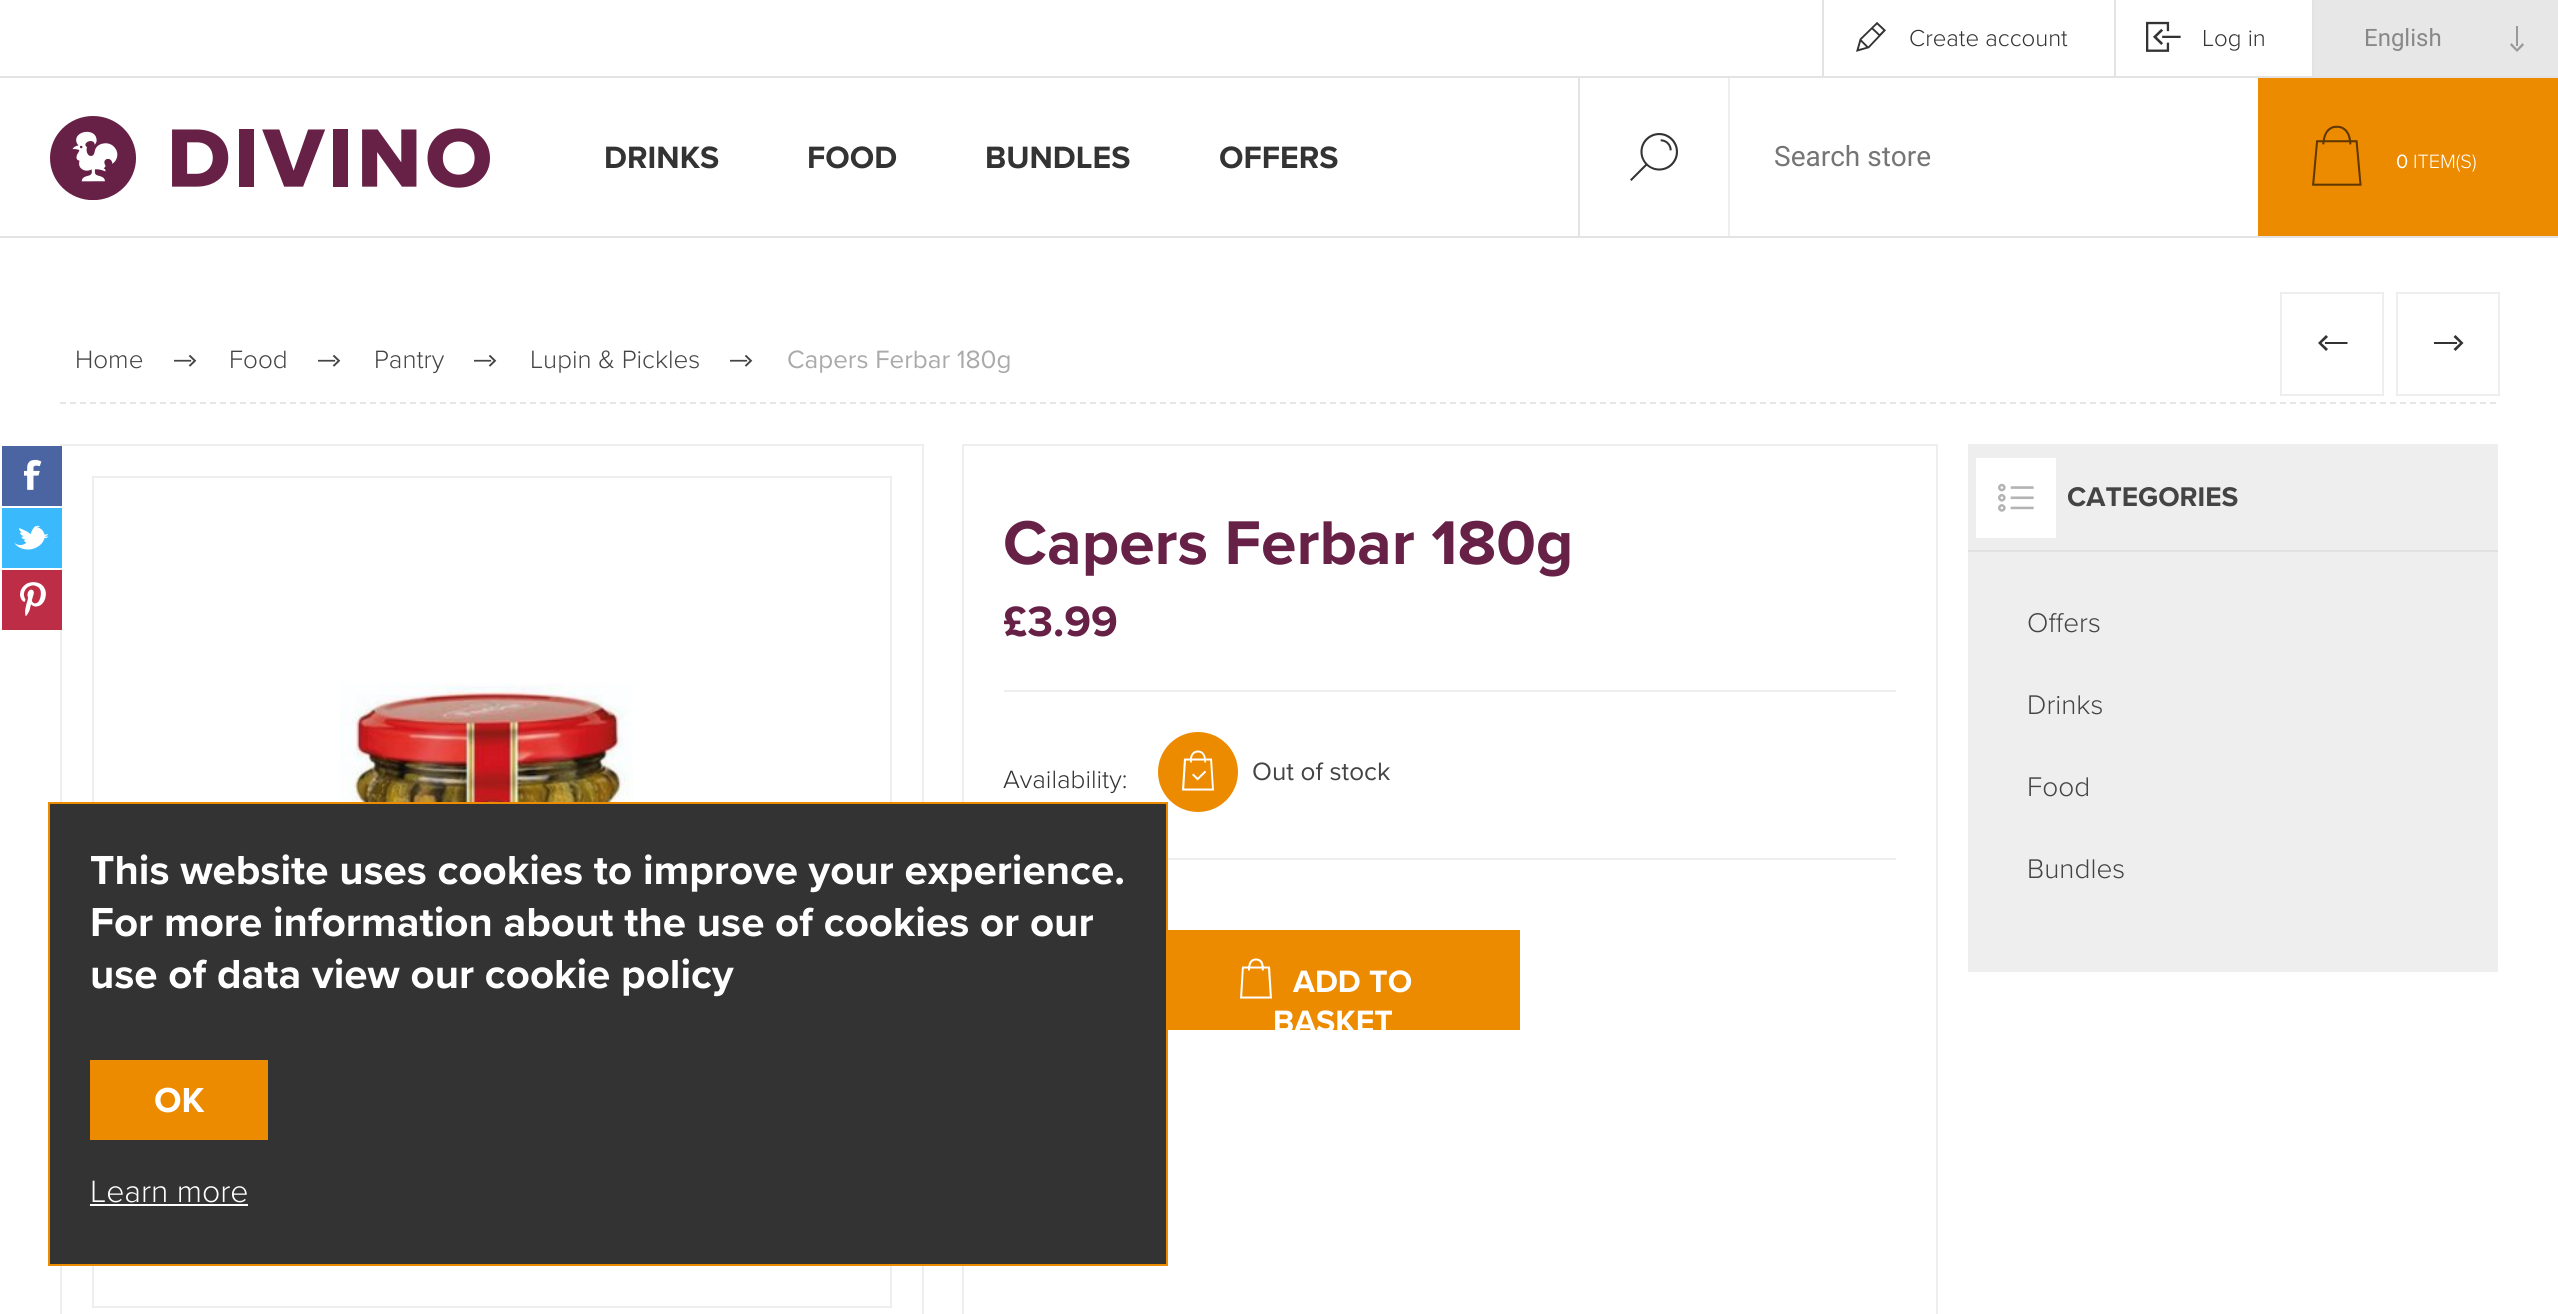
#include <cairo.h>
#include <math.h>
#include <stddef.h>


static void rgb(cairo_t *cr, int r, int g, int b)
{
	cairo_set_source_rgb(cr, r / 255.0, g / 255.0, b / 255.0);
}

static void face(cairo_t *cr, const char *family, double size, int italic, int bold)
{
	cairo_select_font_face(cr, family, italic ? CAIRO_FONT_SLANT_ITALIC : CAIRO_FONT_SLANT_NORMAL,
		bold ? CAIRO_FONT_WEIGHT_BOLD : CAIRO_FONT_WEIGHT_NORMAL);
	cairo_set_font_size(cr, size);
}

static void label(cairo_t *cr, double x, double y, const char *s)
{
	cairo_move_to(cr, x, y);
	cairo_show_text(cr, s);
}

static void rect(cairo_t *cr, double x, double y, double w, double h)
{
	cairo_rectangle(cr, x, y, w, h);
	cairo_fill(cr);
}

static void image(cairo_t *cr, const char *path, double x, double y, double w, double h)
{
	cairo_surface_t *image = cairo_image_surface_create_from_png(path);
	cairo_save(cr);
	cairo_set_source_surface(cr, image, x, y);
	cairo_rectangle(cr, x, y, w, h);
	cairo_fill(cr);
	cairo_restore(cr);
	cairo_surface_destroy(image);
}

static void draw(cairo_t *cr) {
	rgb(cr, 255, 255, 255);
	cairo_paint(cr);
	rgb(cr, 227, 227, 227);
	rect(cr, 0, 76, 2558, 2);
	rect(cr, 1822, 0, 2, 76);
	image(cr, "image0.png", 1856, 22, 30, 30);
	face(cr, "Proxima Nova Light", 24, 0, 0);
	rgb(cr, 51, 51, 51);
	label(cr, 1909, 46, "Create account");
	rgb(cr, 227, 227, 227);
	rect(cr, 2114, 0, 2, 76);
	image(cr, "image1.png", 2146, 21, 35, 31);
	rgb(cr, 51, 51, 51);
	label(cr, 2202, 46, "Log in");
	rgb(cr, 227, 227, 227);
	rect(cr, 2312, 0, 2, 76);
	rgb(cr, 231, 231, 231);
	rect(cr, 2314, 0, 244, 76);
	rgb(cr, 153, 153, 153);
	rect(cr, 2516, 26, 2, 20);
	cairo_new_path(cr);
	cairo_move_to(cr, 2524, 45);
	cairo_line_to(cr, 2522.5, 43);
	cairo_line_to(cr, 2517, 49);
	cairo_line_to(cr, 2511.5, 43);
	cairo_line_to(cr, 2510, 45);
	cairo_line_to(cr, 2517, 52);
	cairo_close_path(cr);
	cairo_fill(cr);
	face(cr, "Roboto", 24, 0, 0);
	rgb(cr, 136, 136, 136);
	label(cr, 2364, 46, "English");
	rgb(cr, 227, 227, 227);
	rect(cr, 0, 236, 2558, 2);
	image(cr, "image2.png", 50, 116, 440, 84);
	face(cr, "Proxima Nova", 32, 0, 1);
	rgb(cr, 51, 51, 51);
	label(cr, 604, 168, "DRINKS");
	label(cr, 807, 168, "FOOD");
	label(cr, 985, 168, "BUNDLES");
	label(cr, 1219, 168, "OFFERS");
	rgb(cr, 227, 227, 227);
	rect(cr, 1578, 78, 2, 158);
	image(cr, "image3.png", 1630, 133, 48, 48);
	rgb(cr, 238, 238, 238);
	rect(cr, 1728, 78, 2, 158);
	face(cr, "Roboto", 28, 0, 0);
	rgb(cr, 117, 117, 117);
	label(cr, 1774, 166, "Search store");
	rgb(cr, 237, 139, 0);
	rect(cr, 2258, 78, 300, 158);
	image(cr, "image4.png", 2312, 125, 50, 61);
	face(cr, "Proxima Nova", 20, 0, 0);
	rgb(cr, 255, 255, 255);
	label(cr, 2396, 168, "0");
	face(cr, "Proxima Nova Light", 20, 0, 0);
	label(cr, 2413, 168, "ITEM(S)");
	cairo_new_path(cr);
	cairo_move_to(cr, 60, 403);
	cairo_line_to(cr, 2498, 403);
	rgb(cr, 230, 230, 230);
	cairo_set_dash(cr, (double[]){6, 4}, 2, 0);
	cairo_stroke(cr);
	face(cr, "Proxima Nova Light", 26, 0, 0);
	rgb(cr, 68, 68, 68);
	label(cr, 75, 368, "Home");
	image(cr, "image5.png", 174, 354, 23, 13);
	label(cr, 229, 368, "Food");
	image(cr, "image5.png", 318, 354, 23, 13);
	label(cr, 374, 368, "Pantry");
	image(cr, "image5.png", 474, 354, 23, 13);
	label(cr, 530, 368, "Lupin & Pickles");
	image(cr, "image5.png", 730, 354, 23, 13);
	face(cr, "Proxima Nova", 26, 0, 0);
	rgb(cr, 170, 170, 170);
	label(cr, 787, 368, "Capers Ferbar 180g");
	cairo_rectangle(cr, 2281, 293, 102, 102);
	rgb(cr, 238, 238, 238);
	cairo_set_dash(cr, NULL, 0, 0);
	cairo_stroke(cr);
	rgb(cr, 51, 51, 51);
	cairo_new_path(cr);
	cairo_move_to(cr, 2325, 342);
	cairo_line_to(cr, 2347.5, 342);
	cairo_line_to(cr, 2347.5, 344);
	cairo_line_to(cr, 2325, 344);
	cairo_close_path(cr);
	cairo_move_to(cr, 2326, 351);
	cairo_line_to(cr, 2328, 349);
	cairo_line_to(cr, 2321.5, 343);
	cairo_line_to(cr, 2328, 337);
	cairo_line_to(cr, 2326, 335);
	cairo_line_to(cr, 2318, 343);
	cairo_close_path(cr);
	cairo_fill(cr);
	cairo_rectangle(cr, 2397, 293, 102, 102);
	rgb(cr, 238, 238, 238);
	cairo_stroke(cr);
	rgb(cr, 51, 51, 51);
	cairo_new_path(cr);
	cairo_move_to(cr, 2434, 342);
	cairo_line_to(cr, 2457, 342);
	cairo_line_to(cr, 2457, 344);
	cairo_line_to(cr, 2434, 344);
	cairo_close_path(cr);
	cairo_move_to(cr, 2455.5, 335);
	cairo_line_to(cr, 2453.5, 337);
	cairo_line_to(cr, 2460, 343);
	cairo_line_to(cr, 2453.5, 349);
	cairo_line_to(cr, 2455.5, 351);
	cairo_line_to(cr, 2463.5, 343);
	cairo_close_path(cr);
	cairo_fill(cr);
	cairo_rectangle(cr, 61, 445, 862, 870);
	rgb(cr, 238, 238, 238);
	cairo_stroke(cr);
	rgb(cr, 74, 101, 162);
	rect(cr, 2, 446, 60, 60);
	image(cr, "image6.png", 24, 459, 18, 31);
	rgb(cr, 58, 186, 253);
	rect(cr, 2, 508, 60, 60);
	image(cr, "image7.png", 14, 525, 35, 25);
	rgb(cr, 189, 45, 69);
	rect(cr, 2, 570, 60, 60);
	image(cr, "image8.png", 20, 582, 26, 34);
	cairo_rectangle(cr, 93, 477, 798, 830);
	rgb(cr, 238, 238, 238);
	cairo_stroke(cr);
	image(cr, "image9.png", 340, 683, 293, 119);
	cairo_rectangle(cr, 963, 445, 974, 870);
	cairo_stroke(cr);
	face(cr, "Proxima Nova", 64, 0, 1);
	rgb(cr, 103, 33, 70);
	label(cr, 1003, 564, "Capers Ferbar 180g");
	rgb(cr, 238, 238, 238);
	rect(cr, 1004, 690, 892, 2);
	face(cr, "Proxima Nova", 44, 0, 1);
	rgb(cr, 103, 33, 70);
	label(cr, 1003, 636, "£3.99");
	rgb(cr, 238, 238, 238);
	rect(cr, 1168, 858, 728, 2);
	face(cr, "Proxima Nova Light", 26, 0, 0);
	rgb(cr, 51, 51, 51);
	label(cr, 1003, 788, "Availability:");
	rgb(cr, 237, 139, 0);
	cairo_new_path(cr);
	cairo_arc(cr, 1198, 772, 40, 0, 2 * M_PI);
	cairo_fill(cr);
	image(cr, "image10.png", 1182, 750, 32, 41);
	face(cr, "Proxima Nova", 26, 0, 0);
	rgb(cr, 68, 68, 68);
	label(cr, 1252, 780, "Out of stock");
	rgb(cr, 237, 139, 0);
	rect(cr, 1168, 930, 352, 100);
	image(cr, "image11.png", 1240, 958, 32, 41);
	face(cr, "Proxima Nova", 32, 0, 1);
	rgb(cr, 255, 255, 255);
	label(cr, 1293, 992, "ADD TO");
	cairo_save(cr);
	cairo_rectangle(cr, 1004, 930, 516, 100);
	cairo_clip(cr);
	label(cr, 1273, 1032, "BASKET");
	cairo_restore(cr);
	rgb(cr, 238, 238, 238);
	rect(cr, 1968, 444, 530, 528);
	rgb(cr, 225, 225, 225);
	rect(cr, 1968, 550, 530, 2);
	rgb(cr, 255, 255, 255);
	rect(cr, 1976, 458, 80, 80);
	image(cr, "image12.png", 1998, 483, 36, 29);
	face(cr, "Proxima Nova", 28, 0, 1);
	rgb(cr, 68, 68, 68);
	label(cr, 2067, 506, "CATEGORIES");
	face(cr, "Proxima Nova Light", 28, 0, 0);
	label(cr, 2027, 632, "Offers");
	label(cr, 2027, 714, "Drinks");
	label(cr, 2027, 796, "Food");
	label(cr, 2027, 878, "Bundles");
	rgb(cr, 51, 51, 51);
	cairo_rectangle(cr, 49, 803, 1118, 462);
	cairo_fill_preserve(cr);
	rgb(cr, 237, 139, 0);
	cairo_stroke(cr);
	face(cr, "Proxima Nova", 42, 0, 1);
	rgb(cr, 255, 255, 255);
	label(cr, 90, 884, "This website uses cookies to improve your experience.");
	label(cr, 90, 936, "For more information about the use of cookies or our");
	label(cr, 90, 988, "use of data view our cookie policy");
	rgb(cr, 237, 139, 0);
	rect(cr, 90, 1060, 178, 80);
	face(cr, "Proxima Nova", 36, 0, 1);
	rgb(cr, 255, 255, 255);
	label(cr, 154, 1112, "OK");
	face(cr, "Proxima Nova Light", 32, 0, 0);
	label(cr, 90, 1202, "Learn more");
	rect(cr, 90, 1204, 158, 2);
}

int main(void) {
	cairo_surface_t *surface = cairo_image_surface_create(CAIRO_FORMAT_RGB24, 2558, 1314);
	cairo_t *cr = cairo_create(surface);
	cairo_font_options_t *options = cairo_font_options_create();
	cairo_font_options_set_hint_metrics(options, CAIRO_HINT_METRICS_OFF);
	cairo_font_options_set_hint_style(options, CAIRO_HINT_STYLE_NONE);
	cairo_set_font_options(cr, options);
	cairo_set_miter_limit(cr, 4);
	draw(cr);
	cairo_surface_write_to_png(surface, "render.png");
	cairo_font_options_destroy(options);
	cairo_destroy(cr);
	cairo_surface_destroy(surface);
	return 0;
}
